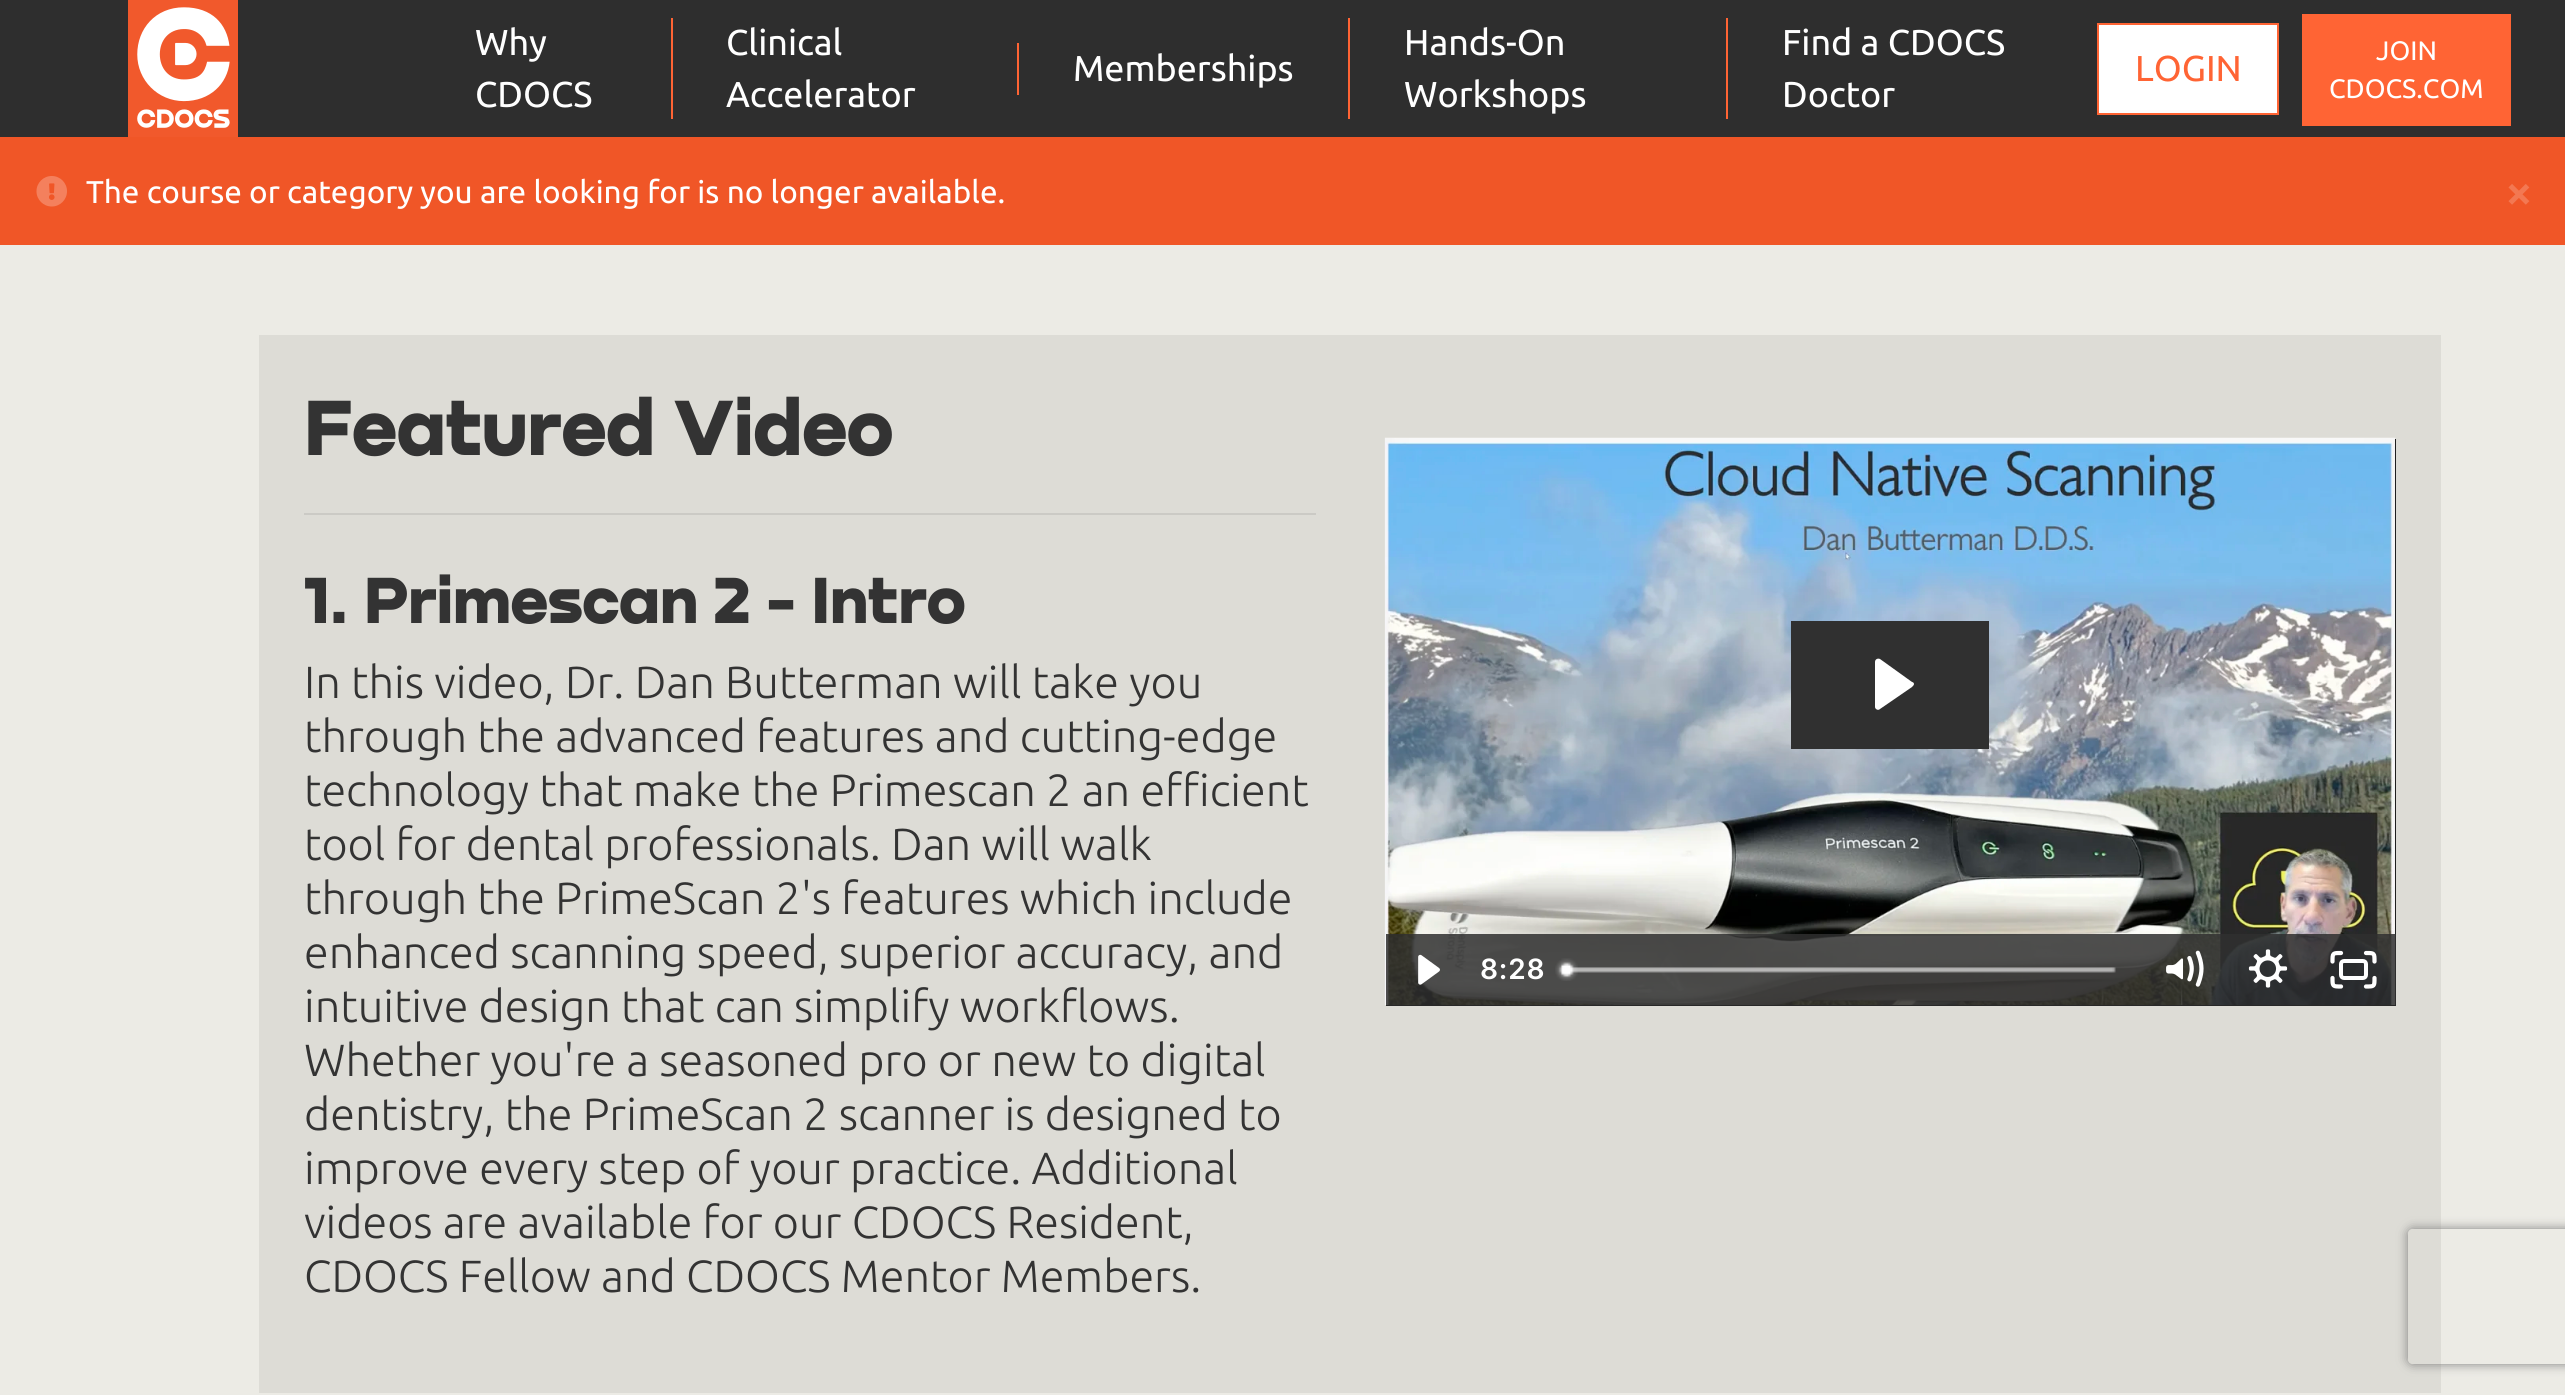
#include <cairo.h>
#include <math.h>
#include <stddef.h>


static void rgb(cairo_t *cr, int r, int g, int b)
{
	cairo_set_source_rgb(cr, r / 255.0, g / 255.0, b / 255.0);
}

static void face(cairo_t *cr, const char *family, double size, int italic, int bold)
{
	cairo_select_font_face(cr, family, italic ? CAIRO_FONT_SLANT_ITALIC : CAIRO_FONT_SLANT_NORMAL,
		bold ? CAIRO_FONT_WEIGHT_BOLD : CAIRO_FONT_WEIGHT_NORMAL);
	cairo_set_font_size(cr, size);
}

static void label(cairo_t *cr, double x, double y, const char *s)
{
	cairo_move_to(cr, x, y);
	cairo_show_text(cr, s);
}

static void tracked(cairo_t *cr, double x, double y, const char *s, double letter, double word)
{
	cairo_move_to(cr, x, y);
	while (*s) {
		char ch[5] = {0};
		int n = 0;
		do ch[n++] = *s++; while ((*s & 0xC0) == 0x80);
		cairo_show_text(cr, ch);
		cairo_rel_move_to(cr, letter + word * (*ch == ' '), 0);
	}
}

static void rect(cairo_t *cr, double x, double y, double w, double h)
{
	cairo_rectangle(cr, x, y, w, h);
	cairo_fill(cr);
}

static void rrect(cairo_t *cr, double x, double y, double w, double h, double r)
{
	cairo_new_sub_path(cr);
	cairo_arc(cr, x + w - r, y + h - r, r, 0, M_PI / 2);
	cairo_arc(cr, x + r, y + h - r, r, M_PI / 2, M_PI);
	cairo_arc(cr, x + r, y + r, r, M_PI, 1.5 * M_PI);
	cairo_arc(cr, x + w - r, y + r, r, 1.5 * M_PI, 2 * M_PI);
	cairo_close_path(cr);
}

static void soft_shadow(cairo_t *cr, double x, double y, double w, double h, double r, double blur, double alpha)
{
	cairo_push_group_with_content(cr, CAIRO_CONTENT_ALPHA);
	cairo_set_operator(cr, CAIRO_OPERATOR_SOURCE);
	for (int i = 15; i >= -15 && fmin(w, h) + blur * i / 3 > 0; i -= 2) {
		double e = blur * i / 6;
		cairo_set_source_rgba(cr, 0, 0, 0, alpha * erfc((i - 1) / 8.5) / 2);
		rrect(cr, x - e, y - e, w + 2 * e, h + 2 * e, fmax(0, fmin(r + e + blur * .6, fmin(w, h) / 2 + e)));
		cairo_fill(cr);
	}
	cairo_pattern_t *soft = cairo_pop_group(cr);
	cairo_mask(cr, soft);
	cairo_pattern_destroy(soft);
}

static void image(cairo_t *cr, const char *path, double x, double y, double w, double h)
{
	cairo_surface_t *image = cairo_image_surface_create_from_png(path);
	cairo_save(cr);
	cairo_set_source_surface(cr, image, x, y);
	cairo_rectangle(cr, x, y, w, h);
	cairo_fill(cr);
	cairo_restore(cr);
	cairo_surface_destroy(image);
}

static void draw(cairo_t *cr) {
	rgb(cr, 236, 235, 229);
	cairo_paint(cr);
	rgb(cr, 46, 46, 46);
	rect(cr, 0, 0, 2565, 137);
	image(cr, "image0.png", 128, 0, 110, 137);
	face(cr, "Ubuntu", 36, 0, 0);
	rgb(cr, 255, 255, 255);
	label(cr, 475, 55, "Why");
	label(cr, 475, 107, "CDOCS");
	rgb(cr, 255, 100, 52);
	rect(cr, 671, 18, 2, 101);
	rgb(cr, 255, 255, 255);
	label(cr, 726, 55, "Clinical");
	label(cr, 726, 107, "Accelerator");
	rgb(cr, 255, 100, 52);
	rect(cr, 1017, 43, 2, 52);
	rgb(cr, 255, 255, 255);
	label(cr, 1073, 81, "Memberships");
	rgb(cr, 255, 100, 52);
	rect(cr, 1348, 18, 2, 101);
	rgb(cr, 255, 255, 255);
	label(cr, 1404, 55, "Hands-On");
	label(cr, 1404, 107, "Workshops");
	rgb(cr, 255, 100, 52);
	rect(cr, 1726, 18, 2, 101);
	rgb(cr, 255, 255, 255);
	label(cr, 1782, 55, "Find a CDOCS");
	label(cr, 1782, 107, "Doctor");
	cairo_rectangle(cr, 2098, 24, 180, 90);
	cairo_fill_preserve(cr);
	rgb(cr, 255, 100, 52);
	cairo_stroke(cr);
	label(cr, 2135, 81, "LOGIN");
	rect(cr, 2302, 14, 209, 112);
	face(cr, "Ubuntu", 26.75, 0, 0);
	rgb(cr, 255, 255, 255);
	label(cr, 2376, 60, "JOIN");
	label(cr, 2329, 98, "CDOCS.COM");
	rgb(cr, 240, 86, 39);
	rect(cr, 0, 137, 2565, 108);
	image(cr, "image1.png", 36, 176, 31, 31);
	face(cr, "Ubuntu", 31.5, 0, 0);
	rgb(cr, 255, 255, 255);
	label(cr, 86, 203, "The course or category you are looking for is no longer available.");
	face(cr, "Ubuntu", 47, 0, 1);
	rgb(cr, 243, 120, 82);
	label(cr, 2505, 209, "×");
	rgb(cr, 221, 220, 214);
	rect(cr, 259, 335, 2182, 1058);
	face(cr, "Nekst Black", 81, 0, 0);
	rgb(cr, 51, 51, 51);
	label(cr, 304, 455, "Featured Video");
	rgb(cr, 203, 202, 197);
	rect(cr, 304, 513, 1012, 2);
	face(cr, "Nekst Black", 67.5, 0, 0);
	rgb(cr, 51, 51, 51);
	label(cr, 304, 623, "1. Primescan 2 - Intro");
	face(cr, "Ubuntu Light", 45, 0, 0);
	label(cr, 304, 698, "In this video, Dr. Dan Butterman will take you");
	label(cr, 304, 752, "through the advanced features and cutting-edge");
	label(cr, 304, 806, "technology that make the Primescan 2 an efficient");
	label(cr, 304, 860, "tool for dental professionals. Dan will walk");
	label(cr, 304, 914, "through the PrimeScan 2's features which include");
	label(cr, 304, 968, "enhanced scanning speed, superior accuracy, and");
	label(cr, 304, 1022, "intuitive design that can simplify workflows.");
	label(cr, 304, 1076, "Whether you're a seasoned pro or new to digital");
	label(cr, 304, 1130, "dentistry, the PrimeScan 2 scanner is designed to");
	label(cr, 304, 1184, "improve every step of your practice. Additional");
	label(cr, 304, 1238, "videos are available for our CDOCS Resident,");
	label(cr, 304, 1292, "CDOCS Fellow and CDOCS Mentor Members.");
	rgb(cr, 0, 0, 0);
	rect(cr, 1386, 439, 1010, 567);
	image(cr, "image2.png", 1384, 437, 1012, 568);
	rgb(cr, 48, 48, 48);
	rect(cr, 1791, 621, 198, 128);
	rgb(cr, 255, 255, 255);
	cairo_set_fill_rule(cr, CAIRO_FILL_RULE_EVEN_ODD);
	cairo_new_path(cr);
	cairo_move_to(cr, 1880, 659);
	cairo_curve_to(cr, 1878, 658, 1875, 659, 1875, 662);
	cairo_line_to(cr, 1875, 707);
	cairo_curve_to(cr, 1875, 709, 1878, 711, 1880, 709);
	cairo_line_to(cr, 1912, 687);
	cairo_curve_to(cr, 1913, 686, 1914, 685, 1914, 684);
	cairo_curve_to(cr, 1914, 683, 1913, 682, 1912, 682);
	cairo_close_path(cr);
	cairo_fill(cr);
	cairo_set_source_rgba(cr, 0.188, 0.188, 0.188, 0.85);
	rect(cr, 1386, 934, 1010, 72);
	image(cr, "image3.png", 1418, 954, 22, 31);
	face(cr, "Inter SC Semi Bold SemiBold", 28, 0, 0);
	rgb(cr, 255, 255, 255);
	tracked(cr, 1480, 979, "8:28", 1, 0);
	image(cr, "image4.png", 1555, 958, 561, 23);
	image(cr, "image5.png", 2166, 950, 38, 37);
	image(cr, "image6.png", 2248, 949, 40, 39);
	rrect(cr, 2341, 961, 25, 17, 3);
	cairo_set_line_width(cr, 4);
	cairo_stroke(cr);
	cairo_new_path(cr);
	cairo_move_to(cr, 2332.5, 961.5);
	cairo_curve_to(cr, 2332.5, 953, 2332.5, 953, 2341, 953);
	cairo_move_to(cr, 2374.5, 961.5);
	cairo_curve_to(cr, 2374.5, 953, 2374.5, 953, 2366, 953);
	cairo_move_to(cr, 2374.5, 978);
	cairo_curve_to(cr, 2374.5, 986.5, 2374.5, 986.5, 2366, 986.5);
	cairo_move_to(cr, 2332.5, 978);
	cairo_curve_to(cr, 2332.5, 986.5, 2332.5, 986.5, 2341, 986.5);
	cairo_set_line_width(cr, 4.2);
	cairo_set_line_cap(cr, CAIRO_LINE_CAP_ROUND);
	cairo_set_line_join(cr, CAIRO_LINE_JOIN_ROUND);
	cairo_stroke(cr);
	cairo_save(cr);
	cairo_new_path(cr);
	cairo_move_to(cr, 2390, 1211);
	cairo_line_to(cr, 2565, 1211);
	cairo_line_to(cr, 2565, 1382);
	cairo_line_to(cr, 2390, 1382);
	cairo_close_path(cr);
	cairo_move_to(cr, 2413, 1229);
	cairo_line_to(cr, 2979, 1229);
	cairo_curve_to(cr, 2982, 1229, 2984, 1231, 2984, 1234);
	cairo_line_to(cr, 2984, 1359);
	cairo_curve_to(cr, 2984, 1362, 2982, 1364, 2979, 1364);
	cairo_line_to(cr, 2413, 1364);
	cairo_curve_to(cr, 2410, 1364, 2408, 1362, 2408, 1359);
	cairo_line_to(cr, 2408, 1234);
	cairo_curve_to(cr, 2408, 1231, 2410, 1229, 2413, 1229);
	cairo_close_path(cr);
	cairo_clip(cr);
	rgb(cr, 128, 128, 128);
	soft_shadow(cr, 2408, 1229, 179, 135, 5, 5.5, 1);
	cairo_restore(cr);
}

int main(void) {
	cairo_surface_t *surface = cairo_image_surface_create(CAIRO_FORMAT_RGB24, 2565, 1395);
	cairo_t *cr = cairo_create(surface);
	cairo_font_options_t *options = cairo_font_options_create();
	cairo_font_options_set_hint_metrics(options, CAIRO_HINT_METRICS_OFF);
	cairo_font_options_set_hint_style(options, CAIRO_HINT_STYLE_NONE);
	cairo_set_font_options(cr, options);
	cairo_set_miter_limit(cr, 4);
	draw(cr);
	cairo_surface_write_to_png(surface, "render.png");
	cairo_font_options_destroy(options);
	cairo_destroy(cr);
	cairo_surface_destroy(surface);
	return 0;
}
